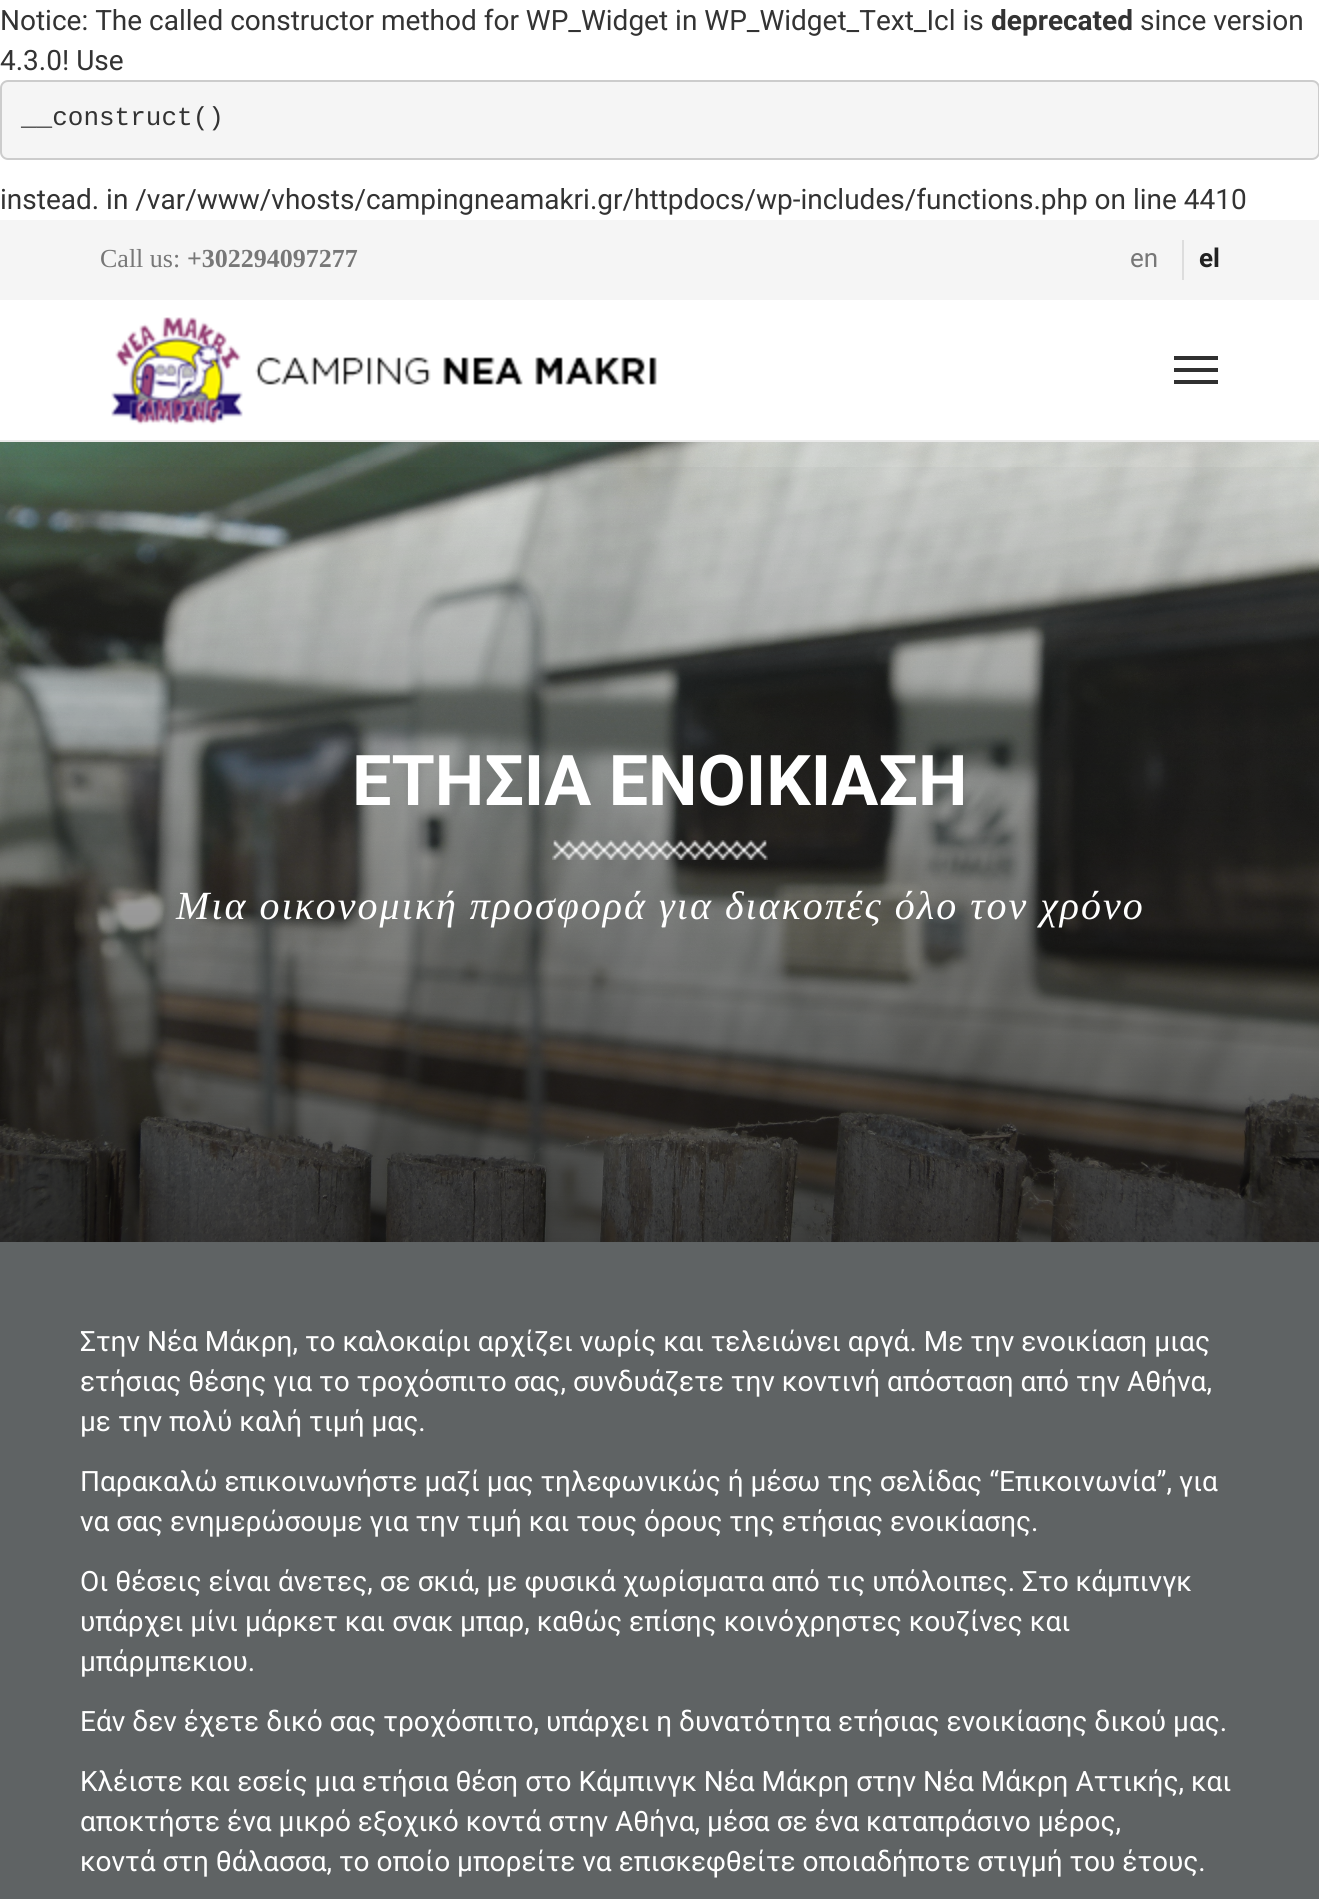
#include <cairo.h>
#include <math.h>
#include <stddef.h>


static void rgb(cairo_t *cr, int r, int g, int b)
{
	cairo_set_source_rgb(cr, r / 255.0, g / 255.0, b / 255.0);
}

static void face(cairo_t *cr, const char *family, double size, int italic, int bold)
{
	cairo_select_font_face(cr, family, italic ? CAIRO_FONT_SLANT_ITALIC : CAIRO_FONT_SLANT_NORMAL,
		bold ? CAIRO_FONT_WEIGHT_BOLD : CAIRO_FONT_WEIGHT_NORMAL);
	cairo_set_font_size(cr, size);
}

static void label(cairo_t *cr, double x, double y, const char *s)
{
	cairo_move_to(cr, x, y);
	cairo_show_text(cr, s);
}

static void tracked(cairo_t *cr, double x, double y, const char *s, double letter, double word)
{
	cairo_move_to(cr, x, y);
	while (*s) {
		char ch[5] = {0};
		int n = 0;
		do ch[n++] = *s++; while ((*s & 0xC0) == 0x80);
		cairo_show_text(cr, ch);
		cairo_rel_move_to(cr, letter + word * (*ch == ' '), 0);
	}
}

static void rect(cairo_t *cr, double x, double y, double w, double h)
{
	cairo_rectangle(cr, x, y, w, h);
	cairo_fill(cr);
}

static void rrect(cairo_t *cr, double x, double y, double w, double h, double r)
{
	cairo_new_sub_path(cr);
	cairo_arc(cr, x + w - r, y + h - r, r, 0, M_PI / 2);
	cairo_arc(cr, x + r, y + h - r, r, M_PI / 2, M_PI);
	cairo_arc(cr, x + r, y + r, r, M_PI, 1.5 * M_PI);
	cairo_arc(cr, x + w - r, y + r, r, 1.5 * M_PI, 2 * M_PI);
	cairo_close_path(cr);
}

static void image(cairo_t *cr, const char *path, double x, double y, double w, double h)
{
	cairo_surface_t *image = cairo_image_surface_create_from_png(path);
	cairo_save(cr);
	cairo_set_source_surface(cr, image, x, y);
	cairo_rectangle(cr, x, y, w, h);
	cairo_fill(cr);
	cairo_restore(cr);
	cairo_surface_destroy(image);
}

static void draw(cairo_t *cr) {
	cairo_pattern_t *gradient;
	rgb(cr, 255, 255, 255);
	cairo_paint(cr);
	face(cr, "Roboto", 28, 0, 0);
	rgb(cr, 51, 51, 51);
	label(cr, 0, 30, "Notice: The called constructor method for WP_Widget in WP_Widget_Text_Icl is");
	face(cr, "Roboto", 28, 0, 1);
	label(cr, 991, 30, "deprecated");
	face(cr, "Roboto", 28, 0, 0);
	label(cr, 1140, 30, "since version");
	label(cr, 0, 70, "4.3.0! Use");
	rgb(cr, 245, 245, 245);
	rrect(cr, 1, 81, 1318, 78, 7);
	cairo_fill_preserve(cr);
	rgb(cr, 204, 204, 204);
	cairo_stroke(cr);
	face(cr, "Liberation Mono", 26, 0, 0);
	rgb(cr, 51, 51, 51);
	label(cr, 21, 125, "__construct()");
	face(cr, "Roboto", 28, 0, 0);
	label(cr, 0, 209, "instead. in /var/www/vhosts/campingneamakri.gr/httpdocs/wp-includes/functions.php on line 4410");
	rgb(cr, 245, 245, 245);
	rect(cr, 0, 220, 1319, 80);
	face(cr, "Liberation Serif", 26, 0, 0);
	rgb(cr, 119, 119, 119);
	label(cr, 100, 267, "Call us:");
	face(cr, "Liberation Serif", 26, 0, 1);
	label(cr, 187, 267, "+302294097277");
	face(cr, "Roboto", 26, 0, 0);
	label(cr, 1130, 267, "en");
	rgb(cr, 221, 221, 221);
	rect(cr, 1182, 240, 2, 40);
	face(cr, "Roboto", 26, 0, 1);
	rgb(cr, 34, 34, 34);
	label(cr, 1199, 267, "el");
	rgb(cr, 234, 234, 234);
	rect(cr, 0, 440, 1319, 2);
	image(cr, "image0.png", 111, 317, 546, 108);
	rgb(cr, 48, 48, 48);
	rect(cr, 1174, 356, 44, 4);
	rect(cr, 1174, 368, 44, 4);
	rect(cr, 1174, 380, 44, 4);
	image(cr, "image1.png", 0, 442, 1319, 800);
	gradient = cairo_pattern_create_linear(660, 442, 660, 1242);
	cairo_pattern_add_color_stop_rgba(gradient, 0, 0, 0, 0, 0);
	cairo_pattern_add_color_stop_rgba(gradient, 1, 0, 0, 0, 0.68);
	cairo_set_source(cr, gradient);
	cairo_pattern_destroy(gradient);
	rect(cr, 0, 467, 1319, 775);
	face(cr, "Roboto", 70, 0, 1);
	rgb(cr, 255, 255, 255);
	label(cr, 352, 805, "ΕΤΗΣΙΑ ΕΝΟΙΚΙΑΣΗ");
	image(cr, "image2.png", 552, 840, 216, 20);
	face(cr, "Liberation Serif", 40, 1, 0);
	tracked(cr, 176, 919, "Μια οικονομική προσφορά για διακοπές όλο τον χρόνο", 2, 0);
	rgb(cr, 95, 99, 100);
	rect(cr, 0, 1242, 1319, 657);
	face(cr, "Roboto", 28, 0, 0);
	rgb(cr, 255, 255, 255);
	label(cr, 80, 1351, "Στην Νέα Μάκρη, το καλοκαίρι αρχίζει νωρίς και τελειώνει αργά. Με την ενοικίαση μιας");
	label(cr, 80, 1391, "ετήσιας θέσης για το τροχόσπιτο σας, συνδυάζετε την κοντινή απόσταση από την Αθήνα,");
	label(cr, 80, 1431, "με την πολύ καλή τιμή μας.");
	label(cr, 80, 1491, "Παρακαλώ επικοινωνήστε μαζί μας τηλεφωνικώς ή μέσω της σελίδας “Επικοινωνία”, για");
	label(cr, 80, 1531, "να σας ενημερώσουμε για την τιμή και τους όρους της ετήσιας ενοικίασης.");
	label(cr, 80, 1591, "Οι θέσεις είναι άνετες, σε σκιά, με φυσικά χωρίσματα από τις υπόλοιπες. Στο κάμπινγκ");
	label(cr, 80, 1631, "υπάρχει μίνι μάρκετ και σνακ μπαρ, καθώς επίσης κοινόχρηστες κουζίνες και");
	label(cr, 80, 1671, "μπάρμπεκιου.");
	label(cr, 80, 1731, "Εάν δεν έχετε δικό σας τροχόσπιτο, υπάρχει η δυνατότητα ετήσιας ενοικίασης δικού μας.");
	label(cr, 80, 1791, "Κλέιστε και εσείς μια ετήσια θέση στο Κάμπινγκ Νέα Μάκρη στην Νέα Μάκρη Αττικής, και");
	label(cr, 80, 1831, "αποκτήστε ένα μικρό εξοχικό κοντά στην Αθήνα, μέσα σε ένα καταπράσινο μέρος,");
	label(cr, 80, 1871, "κοντά στη θάλασσα, το οποίο μπορείτε να επισκεφθείτε οποιαδήποτε στιγμή του έτους.");
}

int main(void) {
	cairo_surface_t *surface = cairo_image_surface_create(CAIRO_FORMAT_RGB24, 1319, 1899);
	cairo_t *cr = cairo_create(surface);
	cairo_font_options_t *options = cairo_font_options_create();
	cairo_font_options_set_hint_metrics(options, CAIRO_HINT_METRICS_OFF);
	cairo_font_options_set_hint_style(options, CAIRO_HINT_STYLE_NONE);
	cairo_set_font_options(cr, options);
	cairo_set_miter_limit(cr, 4);
	draw(cr);
	cairo_surface_write_to_png(surface, "render.png");
	cairo_font_options_destroy(options);
	cairo_destroy(cr);
	cairo_surface_destroy(surface);
	return 0;
}
